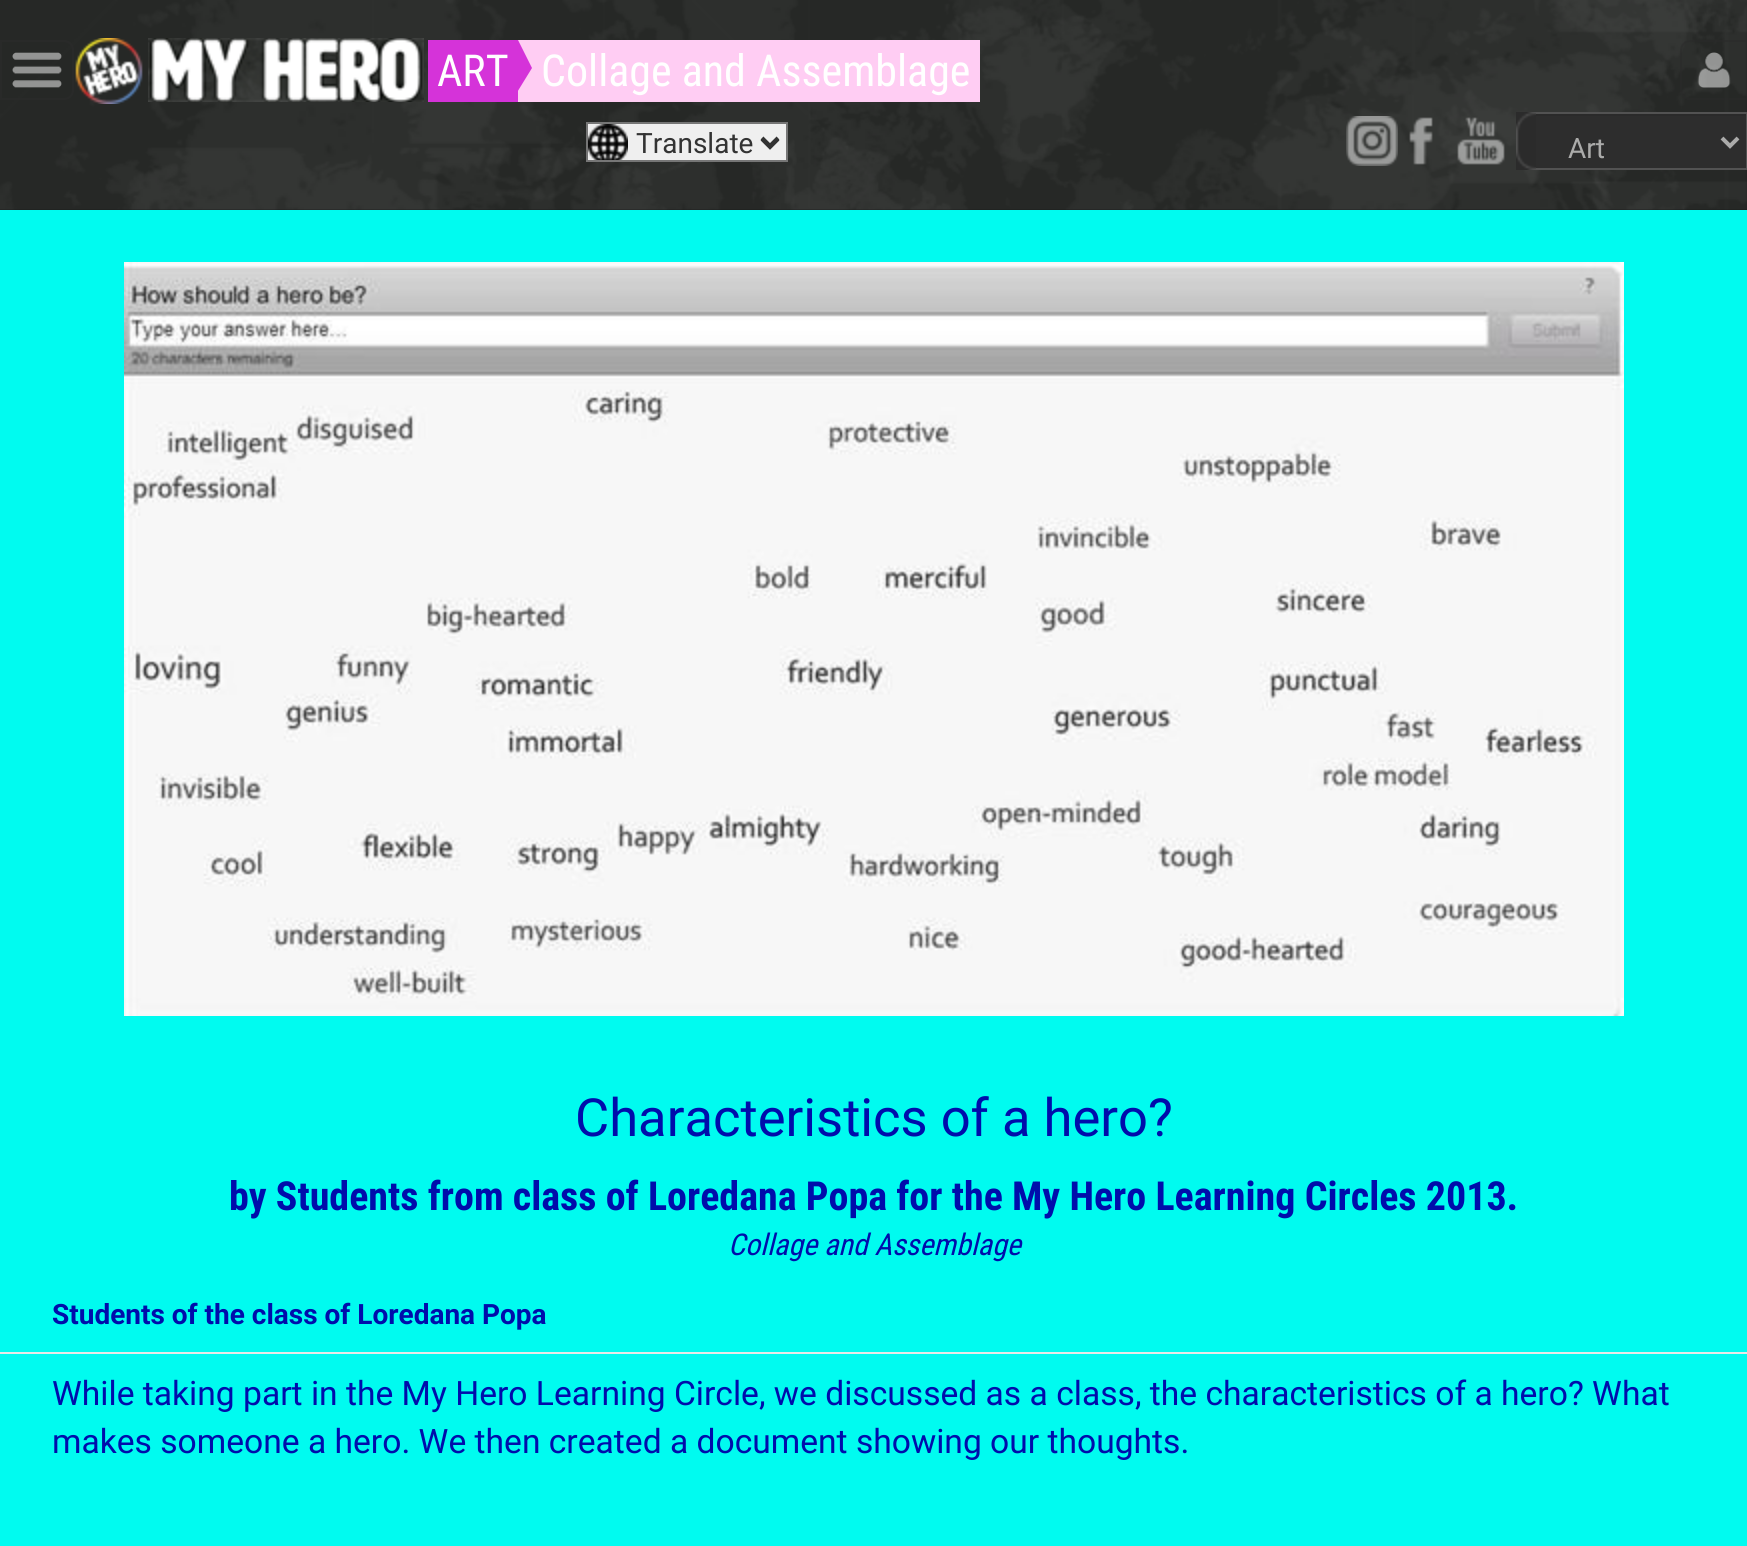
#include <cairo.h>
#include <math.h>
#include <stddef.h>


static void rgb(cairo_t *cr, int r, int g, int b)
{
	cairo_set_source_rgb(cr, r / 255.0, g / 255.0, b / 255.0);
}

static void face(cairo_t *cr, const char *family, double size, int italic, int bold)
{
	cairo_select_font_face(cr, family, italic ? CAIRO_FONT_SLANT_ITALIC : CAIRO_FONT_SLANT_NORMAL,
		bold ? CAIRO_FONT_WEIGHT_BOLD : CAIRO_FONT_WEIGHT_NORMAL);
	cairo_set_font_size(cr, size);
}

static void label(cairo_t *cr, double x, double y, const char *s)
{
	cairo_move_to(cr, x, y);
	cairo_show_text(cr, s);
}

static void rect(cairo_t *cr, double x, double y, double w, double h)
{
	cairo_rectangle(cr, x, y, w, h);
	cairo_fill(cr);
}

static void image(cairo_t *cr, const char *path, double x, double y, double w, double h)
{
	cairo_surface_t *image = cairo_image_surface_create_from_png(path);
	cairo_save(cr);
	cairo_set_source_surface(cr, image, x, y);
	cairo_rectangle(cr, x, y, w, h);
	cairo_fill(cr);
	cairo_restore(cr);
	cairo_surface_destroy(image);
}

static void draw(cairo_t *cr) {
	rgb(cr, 26, 27, 26);
	cairo_paint(cr);
	image(cr, "image0.png", 0, 0, 1747, 210);
	cairo_new_path(cr);
	cairo_move_to(cr, 1, 41);
	cairo_line_to(cr, 64, 41);
	cairo_curve_to(cr, 69, 41, 73, 45, 73, 50);
	cairo_line_to(cr, 73, 90);
	cairo_curve_to(cr, 73, 95, 69, 99, 64, 99);
	cairo_line_to(cr, 1, 99);
	cairo_close_path(cr);
	rgb(cr, 41, 42, 41);
	cairo_stroke(cr);
	image(cr, "image1.png", 12, 52, 50, 36);
	image(cr, "image2.png", 75, 38, 68, 66);
	image(cr, "image3.png", 148, 38, 276, 64);
	rgb(cr, 213, 51, 217);
	rect(cr, 428, 40, 90, 62);
	face(cr, "Roboto Condensed", 44, 0, 0);
	rgb(cr, 255, 255, 255);
	label(cr, 437, 86, "ART");
	rgb(cr, 255, 205, 243);
	rect(cr, 518, 40, 462, 62);
	cairo_save(cr);
	cairo_rectangle(cr, 516, 40, 50, 60);
	cairo_clip(cr);
	rgb(cr, 213, 51, 217);
	cairo_new_path(cr);
	cairo_move_to(cr, 532, 68);
	cairo_line_to(cr, 516, 36);
	cairo_line_to(cr, 516, 94);
	cairo_close_path(cr);
	cairo_fill(cr);
	cairo_restore(cr);
	rgb(cr, 255, 255, 255);
	label(cr, 541, 86, "Collage and Assemblage");
	rgb(cr, 239, 239, 239);
	rect(cr, 588, 124, 198, 36);
	image(cr, "image4.png", 588, 124, 192, 36);
	cairo_rectangle(cr, 587, 123, 200, 38);
	rgb(cr, 118, 118, 118);
	cairo_stroke(cr);
	cairo_new_path(cr);
	cairo_move_to(cr, 762, 139);
	cairo_line_to(cr, 770, 147);
	cairo_line_to(cr, 778, 139);
	rgb(cr, 51, 51, 51);
	cairo_set_line_width(cr, 4);
	cairo_stroke(cr);
	face(cr, "Roboto", 28, 0, 0);
	label(cr, 636, 153, "Translate");
	image(cr, "image5.png", 1346, 116, 52, 50);
	image(cr, "image6.png", 1409, 117, 24, 48);
	image(cr, "image7.png", 1457, 117, 48, 48);
	image(cr, "image8.png", 1516, 112, 20, 58);
	rgb(cr, 45, 45, 45);
	rect(cr, 1536, 116, 210, 52);
	rgb(cr, 42, 42, 42);
	rect(cr, 1536, 114, 210, 2);
	rgb(cr, 82, 82, 82);
	rect(cr, 1536, 112, 211, 2);
	rect(cr, 1746, 112, 1, 58);
	rect(cr, 1536, 168, 211, 2);
	cairo_new_path(cr);
	cairo_move_to(cr, 1722, 138);
	cairo_line_to(cr, 1730, 146);
	cairo_line_to(cr, 1738, 138);
	rgb(cr, 171, 171, 170);
	cairo_stroke(cr);
	label(cr, 1568, 158, "Art");
	cairo_new_path(cr);
	cairo_move_to(cr, 1690, 41);
	cairo_line_to(cr, 1747, 41);
	cairo_line_to(cr, 1747, 99);
	cairo_line_to(cr, 1690, 99);
	cairo_curve_to(cr, 1685, 99, 1681, 95, 1681, 90);
	cairo_line_to(cr, 1681, 50);
	cairo_curve_to(cr, 1681, 45, 1685, 41, 1690, 41);
	cairo_close_path(cr);
	cairo_set_source_rgba(cr, 0.169, 0.169, 0.169, 0.5);
	cairo_set_line_width(cr, 2);
	cairo_stroke(cr);
	image(cr, "image9.png", 1697, 52, 34, 36);
	rgb(cr, 0, 251, 240);
	rect(cr, 0, 210, 1747, 1336);
	image(cr, "image10.png", 124, 262, 1500, 754);
	face(cr, "Roboto", 52.5, 0, 0);
	rgb(cr, 0, 13, 171);
	label(cr, 575, 1136, "Characteristics of a hero?");
	face(cr, "Roboto Condensed", 40, 0, 1);
	label(cr, 229, 1210, "by Students from class of Loredana Popa for the My Hero Learning Circles 2013.");
	face(cr, "Roboto Condensed", 30, 1, 0);
	label(cr, 728, 1255, "Collage and Assemblage");
	face(cr, "Roboto", 28, 0, 1);
	label(cr, 52, 1324, "Students of the class of Loredana Popa");
	rgb(cr, 233, 233, 233);
	rect(cr, 0, 1352, 1747, 2);
	face(cr, "Roboto", 33.6, 0, 0);
	rgb(cr, 0, 13, 171);
	label(cr, 52, 1405, "While taking part in the My Hero Learning Circle, we discussed as a class, the characteristics of a hero? What");
	label(cr, 52, 1453, "makes someone a hero. We then created a document showing our thoughts.");
}

int main(void) {
	cairo_surface_t *surface = cairo_image_surface_create(CAIRO_FORMAT_RGB24, 1747, 1546);
	cairo_t *cr = cairo_create(surface);
	cairo_font_options_t *options = cairo_font_options_create();
	cairo_font_options_set_hint_metrics(options, CAIRO_HINT_METRICS_OFF);
	cairo_font_options_set_hint_style(options, CAIRO_HINT_STYLE_NONE);
	cairo_set_font_options(cr, options);
	cairo_set_miter_limit(cr, 4);
	draw(cr);
	cairo_surface_write_to_png(surface, "render.png");
	cairo_font_options_destroy(options);
	cairo_destroy(cr);
	cairo_surface_destroy(surface);
	return 0;
}
